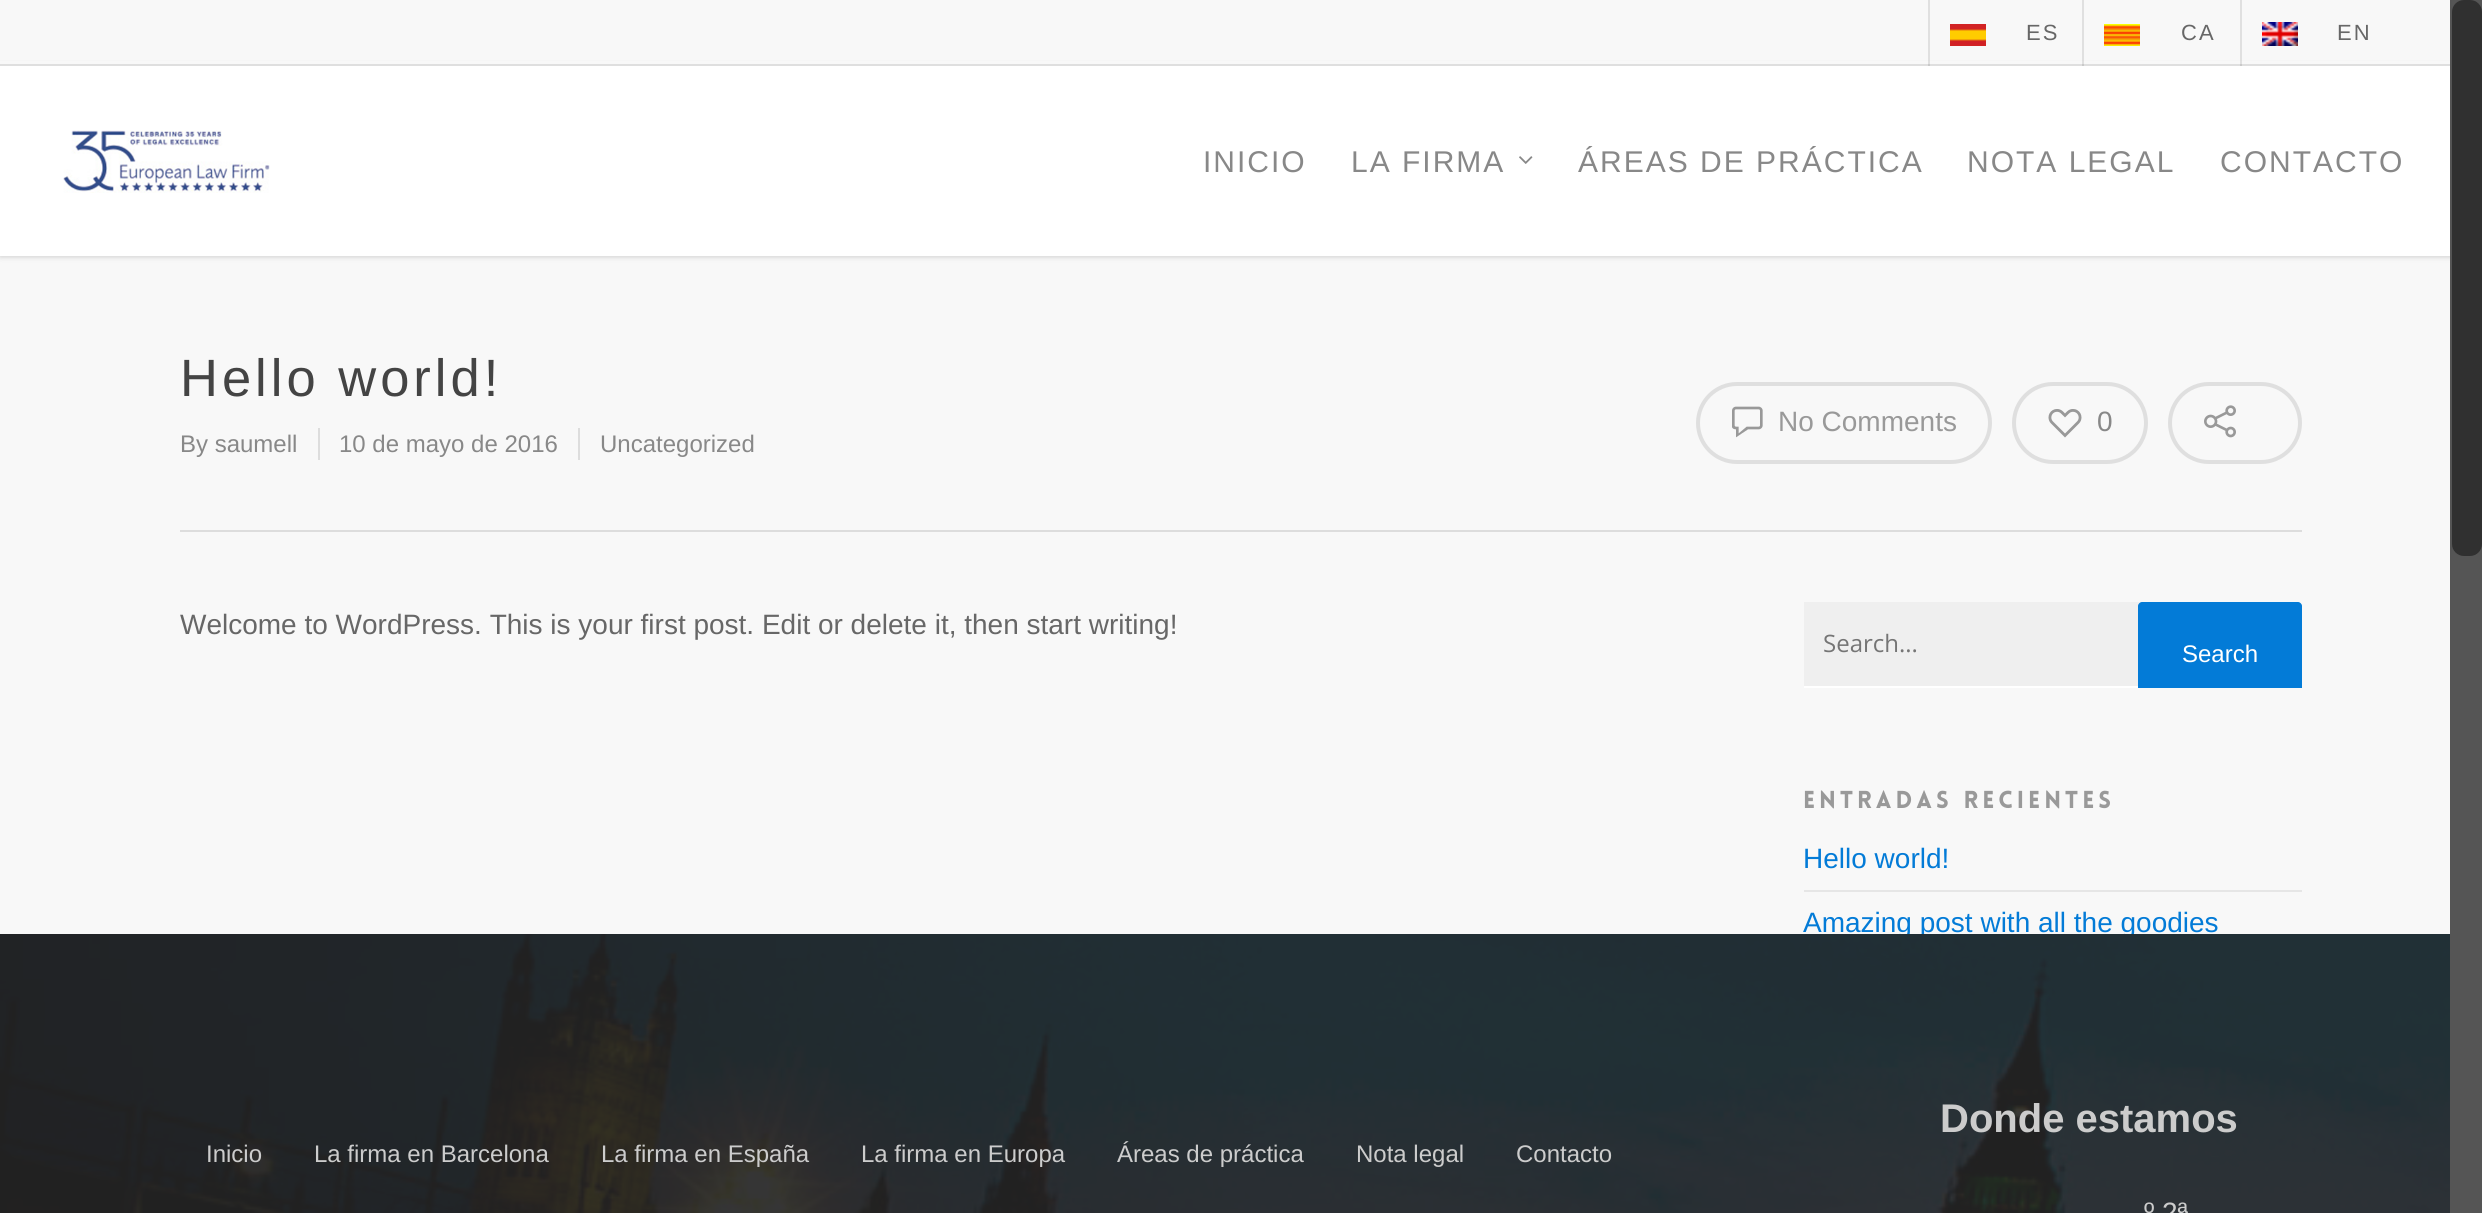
#include <cairo.h>
#include <math.h>
#include <stddef.h>


static void rgb(cairo_t *cr, int r, int g, int b)
{
	cairo_set_source_rgb(cr, r / 255.0, g / 255.0, b / 255.0);
}

static void face(cairo_t *cr, const char *family, double size, int italic, int bold)
{
	cairo_select_font_face(cr, family, italic ? CAIRO_FONT_SLANT_ITALIC : CAIRO_FONT_SLANT_NORMAL,
		bold ? CAIRO_FONT_WEIGHT_BOLD : CAIRO_FONT_WEIGHT_NORMAL);
	cairo_set_font_size(cr, size);
}

static void label(cairo_t *cr, double x, double y, const char *s)
{
	cairo_move_to(cr, x, y);
	cairo_show_text(cr, s);
}

static void tracked(cairo_t *cr, double x, double y, const char *s, double letter, double word)
{
	cairo_move_to(cr, x, y);
	while (*s) {
		char ch[5] = {0};
		int n = 0;
		do ch[n++] = *s++; while ((*s & 0xC0) == 0x80);
		cairo_show_text(cr, ch);
		cairo_rel_move_to(cr, letter + word * (*ch == ' '), 0);
	}
}

static void rect(cairo_t *cr, double x, double y, double w, double h)
{
	cairo_rectangle(cr, x, y, w, h);
	cairo_fill(cr);
}

static void rrect(cairo_t *cr, double x, double y, double w, double h, double r)
{
	cairo_new_sub_path(cr);
	cairo_arc(cr, x + w - r, y + h - r, r, 0, M_PI / 2);
	cairo_arc(cr, x + r, y + h - r, r, M_PI / 2, M_PI);
	cairo_arc(cr, x + r, y + r, r, M_PI, 1.5 * M_PI);
	cairo_arc(cr, x + w - r, y + r, r, 1.5 * M_PI, 2 * M_PI);
	cairo_close_path(cr);
}

static void soft_shadow(cairo_t *cr, double x, double y, double w, double h, double r, double blur, double alpha)
{
	cairo_push_group_with_content(cr, CAIRO_CONTENT_ALPHA);
	cairo_set_operator(cr, CAIRO_OPERATOR_SOURCE);
	for (int i = 15; i >= -15 && fmin(w, h) + blur * i / 3 > 0; i -= 2) {
		double e = blur * i / 6;
		cairo_set_source_rgba(cr, 0, 0, 0, alpha * erfc((i - 1) / 8.5) / 2);
		rrect(cr, x - e, y - e, w + 2 * e, h + 2 * e, fmax(0, fmin(r + e + blur * .6, fmin(w, h) / 2 + e)));
		cairo_fill(cr);
	}
	cairo_pattern_t *soft = cairo_pop_group(cr);
	cairo_mask(cr, soft);
	cairo_pattern_destroy(soft);
}

static void image(cairo_t *cr, const char *path, double x, double y, double w, double h)
{
	cairo_surface_t *image = cairo_image_surface_create_from_png(path);
	cairo_save(cr);
	cairo_set_source_surface(cr, image, x, y);
	cairo_rectangle(cr, x, y, w, h);
	cairo_fill(cr);
	cairo_restore(cr);
	cairo_surface_destroy(image);
}

static void draw(cairo_t *cr) {
	rgb(cr, 248, 248, 248);
	cairo_paint(cr);
	rgb(cr, 0, 0, 0);
	soft_shadow(cr, 0, 66, 2482, 190, 0, 3, 0.22);
	rgb(cr, 248, 248, 248);
	rect(cr, 0, 61, 2450, 3);
	rgb(cr, 223, 223, 223);
	rect(cr, 0, 64, 2450, 2);
	cairo_set_source_rgba(cr, 0, 0, 0, 0.1);
	rect(cr, 1928, 0, 2, 66);
	image(cr, "image0.png", 1950, 24, 36, 22);
	face(cr, "Liberation Sans", 22, 0, 0);
	rgb(cr, 103, 103, 103);
	tracked(cr, 2026, 40, "ES", 2, 0);
	cairo_set_source_rgba(cr, 0, 0, 0, 0.1);
	rect(cr, 2082, 0, 2, 66);
	image(cr, "image1.png", 2104, 24, 36, 22);
	rgb(cr, 103, 103, 103);
	tracked(cr, 2181, 40, "CA", 2, 0);
	cairo_set_source_rgba(cr, 0, 0, 0, 0.1);
	rect(cr, 2240, 0, 2, 66);
	image(cr, "image2.png", 2262, 22, 36, 24);
	rgb(cr, 103, 103, 103);
	tracked(cr, 2337, 40, "EN", 2, 0);
	rgb(cr, 85, 85, 85);
	rect(cr, 2450, 0, 32, 1213);
	rgb(cr, 48, 48, 48);
	rrect(cr, 2452, 0, 30, 556, 12);
	cairo_fill(cr);
	rgb(cr, 255, 255, 255);
	rect(cr, 0, 66, 2450, 190);
	image(cr, "image3.png", 63, 130, 207, 63);
	face(cr, "Liberation Sans", 30, 0, 0);
	rgb(cr, 136, 136, 136);
	tracked(cr, 1203, 172, "INICIO", 2, 0);
	tracked(cr, 1351, 172, "LA FIRMA", 2, 0);
	image(cr, "image4.png", 1519, 156, 14, 8);
	tracked(cr, 1578, 172, "ÁREAS DE PRÁCTICA", 2, 0);
	tracked(cr, 1967, 172, "NOTA LEGAL", 2, 0);
	tracked(cr, 2220, 172, "CONTACTO", 2, 0);
	rgb(cr, 221, 221, 221);
	rect(cr, 180, 530, 2122, 2);
	face(cr, "Liberation Sans", 52.5, 0, 0);
	rgb(cr, 68, 68, 68);
	tracked(cr, 180, 396, "Hello world!", 4, 0);
	rrect(cr, 1698, 384, 292, 78, 39);
	rgb(cr, 223, 223, 223);
	cairo_set_line_width(cr, 4);
	cairo_stroke(cr);
	image(cr, "image5.png", 1732, 406, 31, 32);
	face(cr, "Liberation Sans", 28, 0, 0);
	rgb(cr, 153, 153, 153);
	label(cr, 1778, 431, "No Comments");
	rrect(cr, 2014, 384, 132, 78, 39);
	rgb(cr, 223, 223, 223);
	cairo_stroke(cr);
	image(cr, "image6.png", 2048, 409, 34, 29);
	rgb(cr, 136, 136, 136);
	label(cr, 2097, 431, "0");
	rrect(cr, 2170, 384, 130, 78, 39);
	rgb(cr, 223, 223, 223);
	cairo_stroke(cr);
	image(cr, "image7.png", 2204, 405, 32, 33);
	face(cr, "Liberation Sans", 24, 0, 0);
	rgb(cr, 136, 136, 136);
	label(cr, 180, 452, "By saumell");
	rgb(cr, 221, 221, 221);
	rect(cr, 318, 428, 2, 32);
	rgb(cr, 136, 136, 136);
	label(cr, 339, 452, "10 de mayo de 2016");
	rgb(cr, 221, 221, 221);
	rect(cr, 578, 428, 2, 32);
	rgb(cr, 136, 136, 136);
	label(cr, 600, 452, "Uncategorized");
	face(cr, "Liberation Sans", 28, 0, 0);
	rgb(cr, 103, 103, 103);
	label(cr, 180, 634, "Welcome to WordPress. This is your first post. Edit or delete it, then start writing!");
	rgb(cr, 239, 239, 239);
	cairo_new_path(cr);
	cairo_move_to(cr, 1804, 602);
	cairo_line_to(cr, 2298, 602);
	cairo_curve_to(cr, 2300, 602, 2302, 604, 2302, 606);
	cairo_line_to(cr, 2302, 684);
	cairo_curve_to(cr, 2302, 686, 2300, 688, 2298, 688);
	cairo_line_to(cr, 1804, 688);
	cairo_close_path(cr);
	cairo_fill(cr);
	rgb(cr, 255, 255, 255);
	rect(cr, 1804, 686, 334, 2);
	face(cr, "Open Sans", 24, 0, 0);
	rgb(cr, 117, 117, 117);
	label(cr, 1823, 652, "Search...");
	rgb(cr, 3, 123, 215);
	cairo_new_path(cr);
	cairo_move_to(cr, 2142, 602);
	cairo_line_to(cr, 2298, 602);
	cairo_curve_to(cr, 2300, 602, 2302, 604, 2302, 606);
	cairo_line_to(cr, 2302, 688);
	cairo_line_to(cr, 2138, 688);
	cairo_line_to(cr, 2138, 606);
	cairo_curve_to(cr, 2138, 604, 2140, 602, 2142, 602);
	cairo_close_path(cr);
	cairo_fill(cr);
	face(cr, "Liberation Sans", 24, 0, 0);
	rgb(cr, 255, 255, 255);
	label(cr, 2182, 662, "Search");
	face(cr, "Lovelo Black", 24, 0, 0);
	rgb(cr, 153, 153, 153);
	tracked(cr, 1803, 808, "ENTRADAS RECIENTES", 4, 0);
	rgb(cr, 230, 230, 230);
	rect(cr, 1804, 890, 498, 2);
	face(cr, "Liberation Sans", 28, 0, 0);
	rgb(cr, 3, 123, 215);
	label(cr, 1803, 868, "Hello world!");
	label(cr, 1803, 932, "Amazing post with all the goodies");
	image(cr, "image8.png", 0, 934, 2450, 279);
	face(cr, "Liberation Sans", 24, 0, 0);
	rgb(cr, 204, 204, 204);
	label(cr, 206, 1162, "Inicio");
	label(cr, 314, 1162, "La firma en Barcelona");
	label(cr, 601, 1162, "La firma en España");
	label(cr, 861, 1162, "La firma en Europa");
	label(cr, 1117, 1162, "Áreas de práctica");
	label(cr, 1356, 1162, "Nota legal");
	label(cr, 1516, 1162, "Contacto");
	face(cr, "Liberation Sans", 40, 0, 1);
	label(cr, 1940, 1132, "Donde estamos");
	face(cr, "Liberation Sans", 28, 0, 0);
	label(cr, 2144, 1222, "º 2ª");
}

int main(void) {
	cairo_surface_t *surface = cairo_image_surface_create(CAIRO_FORMAT_RGB24, 2482, 1213);
	cairo_t *cr = cairo_create(surface);
	cairo_font_options_t *options = cairo_font_options_create();
	cairo_font_options_set_hint_metrics(options, CAIRO_HINT_METRICS_OFF);
	cairo_font_options_set_hint_style(options, CAIRO_HINT_STYLE_NONE);
	cairo_set_font_options(cr, options);
	cairo_set_miter_limit(cr, 4);
	draw(cr);
	cairo_surface_write_to_png(surface, "render.png");
	cairo_font_options_destroy(options);
	cairo_destroy(cr);
	cairo_surface_destroy(surface);
	return 0;
}
